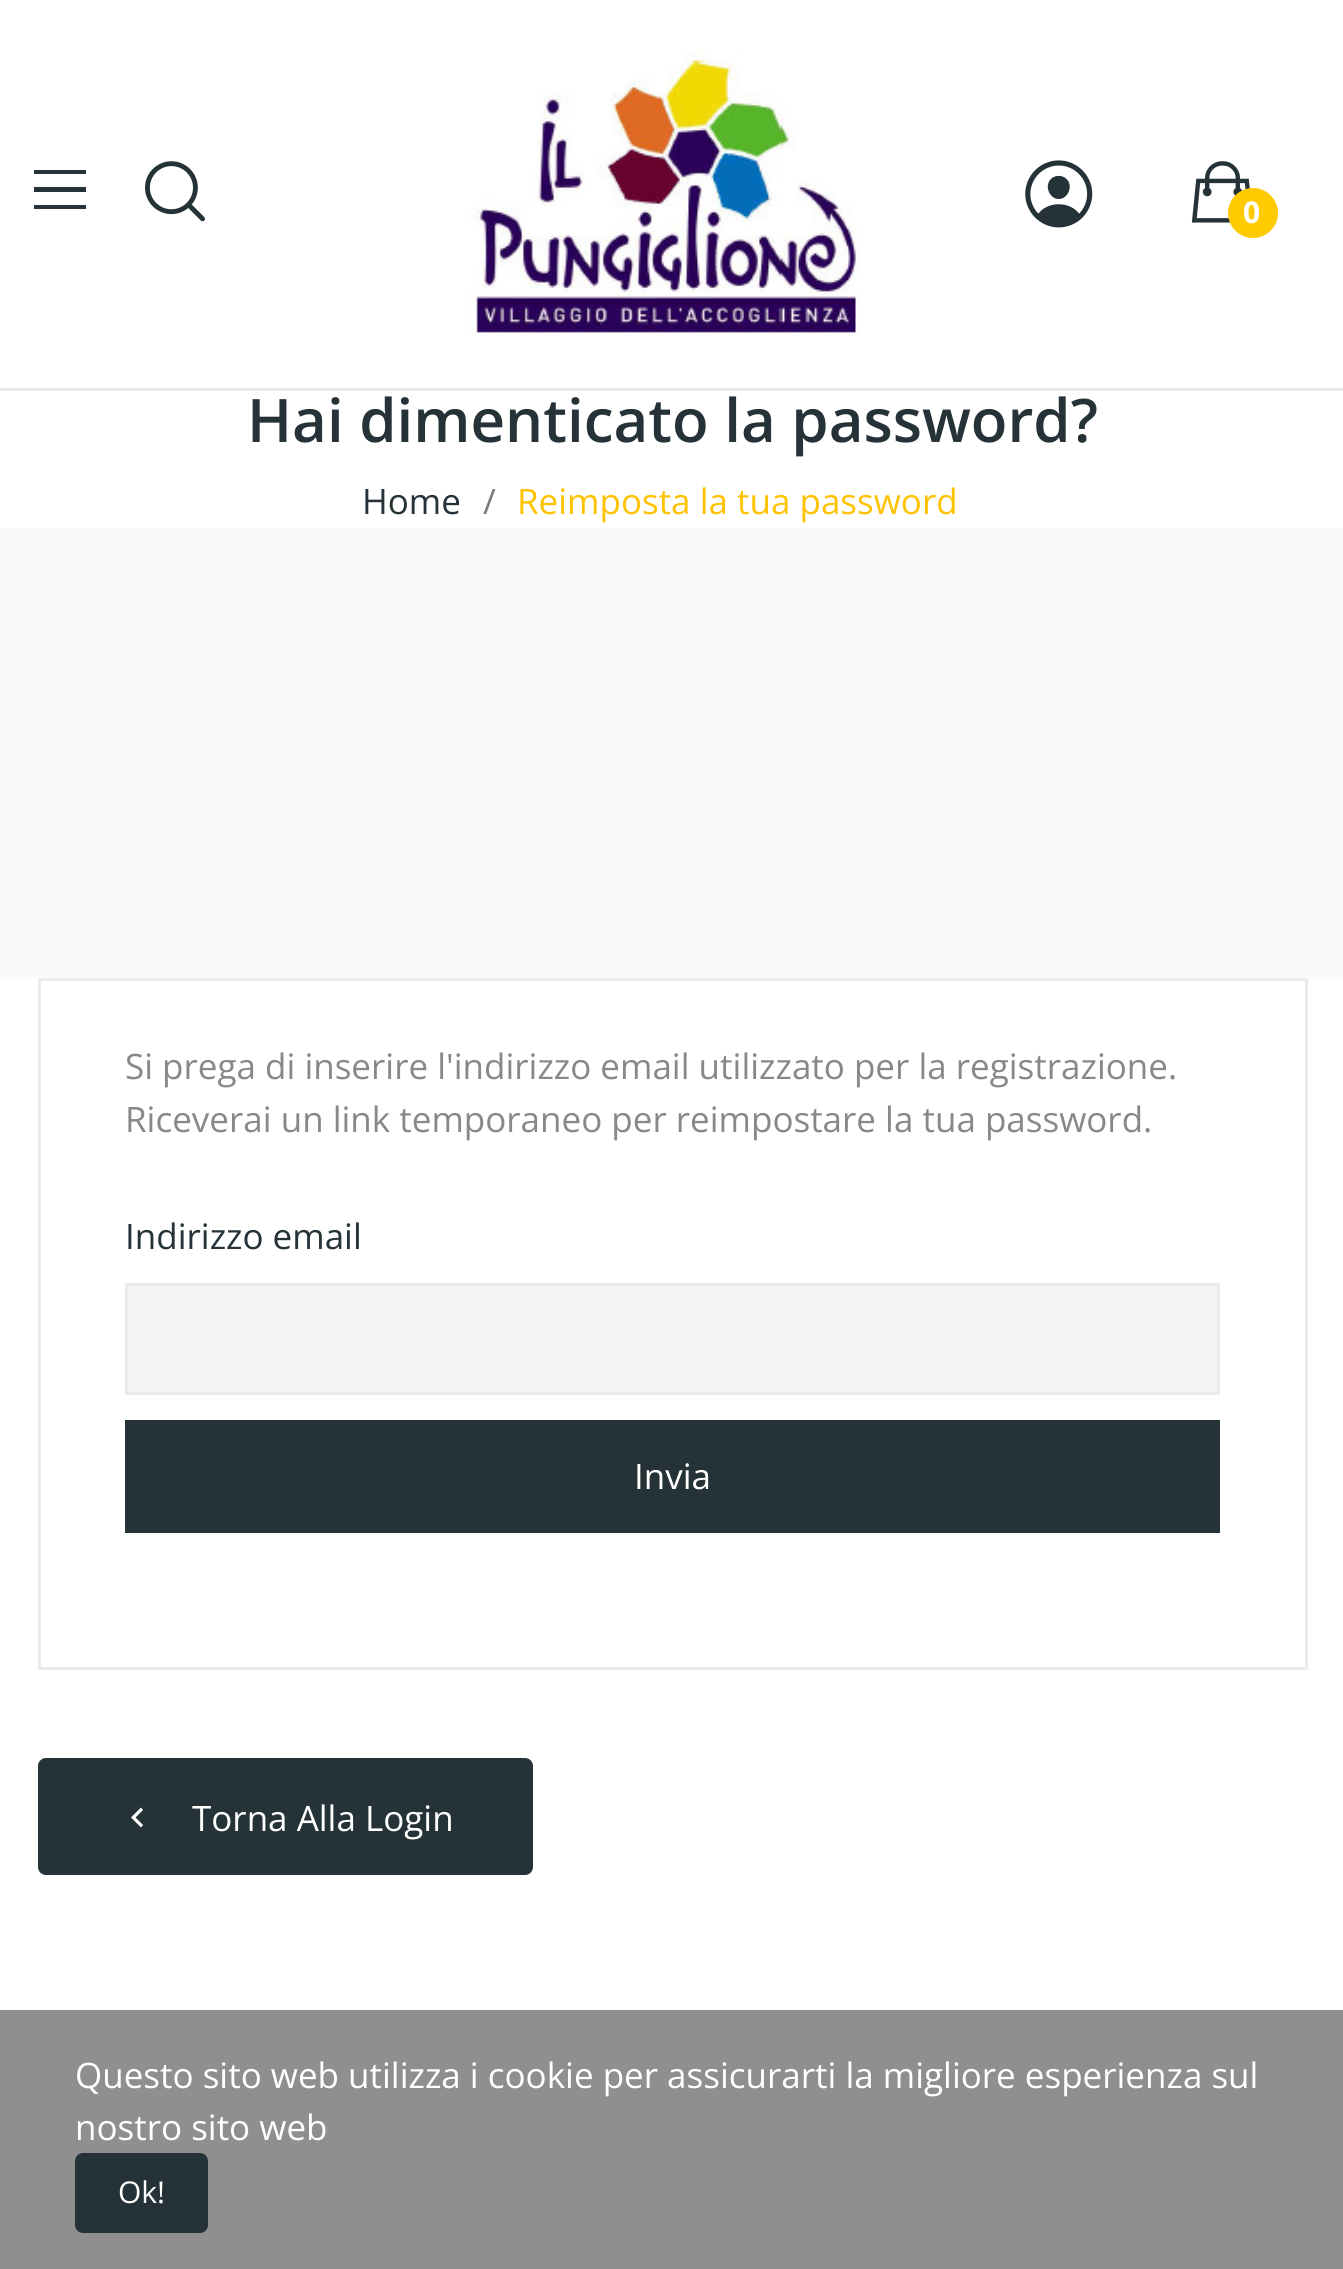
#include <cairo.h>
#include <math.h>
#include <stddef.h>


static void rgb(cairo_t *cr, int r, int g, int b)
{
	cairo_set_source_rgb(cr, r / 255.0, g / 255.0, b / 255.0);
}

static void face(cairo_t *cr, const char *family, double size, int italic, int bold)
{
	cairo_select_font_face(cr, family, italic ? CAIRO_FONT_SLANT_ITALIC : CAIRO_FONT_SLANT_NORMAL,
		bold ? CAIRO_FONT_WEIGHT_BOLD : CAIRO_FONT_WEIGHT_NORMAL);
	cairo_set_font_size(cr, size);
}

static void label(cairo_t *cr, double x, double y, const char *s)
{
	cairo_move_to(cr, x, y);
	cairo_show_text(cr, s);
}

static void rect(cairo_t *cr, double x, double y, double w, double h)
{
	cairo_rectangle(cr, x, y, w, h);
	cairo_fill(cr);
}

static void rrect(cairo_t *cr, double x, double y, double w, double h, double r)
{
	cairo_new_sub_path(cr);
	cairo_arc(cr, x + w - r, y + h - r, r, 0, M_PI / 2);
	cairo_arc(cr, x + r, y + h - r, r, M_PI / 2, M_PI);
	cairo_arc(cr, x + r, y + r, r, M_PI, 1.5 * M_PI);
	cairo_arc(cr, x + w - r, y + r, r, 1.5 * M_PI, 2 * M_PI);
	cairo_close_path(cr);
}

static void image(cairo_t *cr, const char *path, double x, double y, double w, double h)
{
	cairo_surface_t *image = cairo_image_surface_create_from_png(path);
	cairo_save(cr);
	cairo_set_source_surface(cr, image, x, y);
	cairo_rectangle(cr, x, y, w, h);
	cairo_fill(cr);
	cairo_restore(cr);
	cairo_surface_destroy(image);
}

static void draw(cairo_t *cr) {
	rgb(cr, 255, 255, 255);
	cairo_paint(cr);
	rgb(cr, 235, 235, 235);
	rect(cr, 0, 388, 1343, 3);
	rgb(cr, 37, 50, 55);
	cairo_new_path(cr);
	cairo_move_to(cr, 34, 170);
	cairo_line_to(cr, 34, 174);
	cairo_line_to(cr, 86, 174);
	cairo_line_to(cr, 86, 170);
	cairo_close_path(cr);
	cairo_move_to(cr, 34, 187);
	cairo_line_to(cr, 34, 192);
	cairo_line_to(cr, 86, 192);
	cairo_line_to(cr, 86, 187);
	cairo_close_path(cr);
	cairo_move_to(cr, 34, 205);
	cairo_line_to(cr, 34, 209);
	cairo_line_to(cr, 86, 209);
	cairo_line_to(cr, 86, 205);
	cairo_close_path(cr);
	cairo_fill(cr);
	image(cr, "image0.png", 145, 161, 60, 61);
	image(cr, "image1.png", 470, 50, 393, 286);
	image(cr, "image2.png", 1025, 160, 68, 68);
	image(cr, "image3.png", 1191, 161, 59, 62);
	rgb(cr, 255, 202, 0);
	cairo_arc(cr, 1253, 213, 25, 0, 2 * M_PI);
	cairo_fill(cr);
	face(cr, "Open Sans", 30, 0, 1);
	rgb(cr, 255, 255, 255);
	label(cr, 1243, 223, "0");
	rgb(cr, 249, 249, 249);
	rect(cr, 0, 528, 1343, 449);
	face(cr, "Open Sans SemiBold", 60, 0, 0);
	rgb(cr, 37, 50, 55);
	label(cr, 247, 442, "Hai dimenticato la password?");
	face(cr, "Open Sans", 35, 0, 0);
	label(cr, 362, 514, "Home");
	rgb(cr, 122, 122, 122);
	label(cr, 483, 514, "/");
	rgb(cr, 255, 194, 0);
	label(cr, 517, 514, "Reimposta la tua password");
	cairo_rectangle(cr, 39.5, 979.5, 1267, 689);
	rgb(cr, 235, 235, 235);
	cairo_set_line_width(cr, 3);
	cairo_stroke(cr);
	rgb(cr, 136, 136, 136);
	label(cr, 125, 1079, "Si prega di inserire l'indirizzo email utilizzato per la registrazione.");
	label(cr, 125, 1132, "Riceverai un link temporaneo per reimpostare la tua password.");
	rgb(cr, 37, 50, 55);
	label(cr, 125, 1249, "Indirizzo email");
	rgb(cr, 245, 245, 245);
	cairo_rectangle(cr, 126.5, 1284.5, 1092, 109);
	cairo_fill_preserve(cr);
	rgb(cr, 235, 235, 235);
	cairo_stroke(cr);
	rgb(cr, 37, 50, 55);
	rect(cr, 125, 1420, 1095, 113);
	rgb(cr, 255, 255, 255);
	label(cr, 634, 1489, "Invia");
	rgb(cr, 37, 50, 55);
	rrect(cr, 40.5, 1760.5, 490, 112, 5.5);
	cairo_fill_preserve(cr);
	cairo_set_line_width(cr, 5);
	cairo_stroke(cr);
	rgb(cr, 255, 255, 255);
	cairo_new_path(cr);
	cairo_move_to(cr, 143, 1810);
	cairo_line_to(cr, 135.5, 1817.5);
	cairo_line_to(cr, 143, 1825);
	cairo_line_to(cr, 141, 1827.5);
	cairo_line_to(cr, 131, 1817.5);
	cairo_line_to(cr, 141, 1807.5);
	cairo_close_path(cr);
	cairo_fill(cr);
	label(cr, 192, 1831, "Torna Alla Login");
	rgb(cr, 144, 142, 143);
	rect(cr, 0, 2010, 1343, 259);
	rgb(cr, 255, 255, 255);
	label(cr, 75, 2088, "Questo sito web utilizza i cookie per assicurarti la migliore esperienza sul");
	label(cr, 75, 2140, "nostro sito web");
	rgb(cr, 37, 50, 55);
	rrect(cr, 77.5, 2155.5, 128, 75, 5.5);
	cairo_fill_preserve(cr);
	cairo_stroke(cr);
	face(cr, "Open Sans", 30, 0, 0);
	rgb(cr, 255, 255, 255);
	label(cr, 118, 2203, "Ok!");
}

int main(void) {
	cairo_surface_t *surface = cairo_image_surface_create(CAIRO_FORMAT_RGB24, 1343, 2269);
	cairo_t *cr = cairo_create(surface);
	cairo_font_options_t *options = cairo_font_options_create();
	cairo_font_options_set_hint_metrics(options, CAIRO_HINT_METRICS_OFF);
	cairo_font_options_set_hint_style(options, CAIRO_HINT_STYLE_NONE);
	cairo_set_font_options(cr, options);
	cairo_set_miter_limit(cr, 4);
	draw(cr);
	cairo_surface_write_to_png(surface, "render.png");
	cairo_font_options_destroy(options);
	cairo_destroy(cr);
	cairo_surface_destroy(surface);
	return 0;
}
